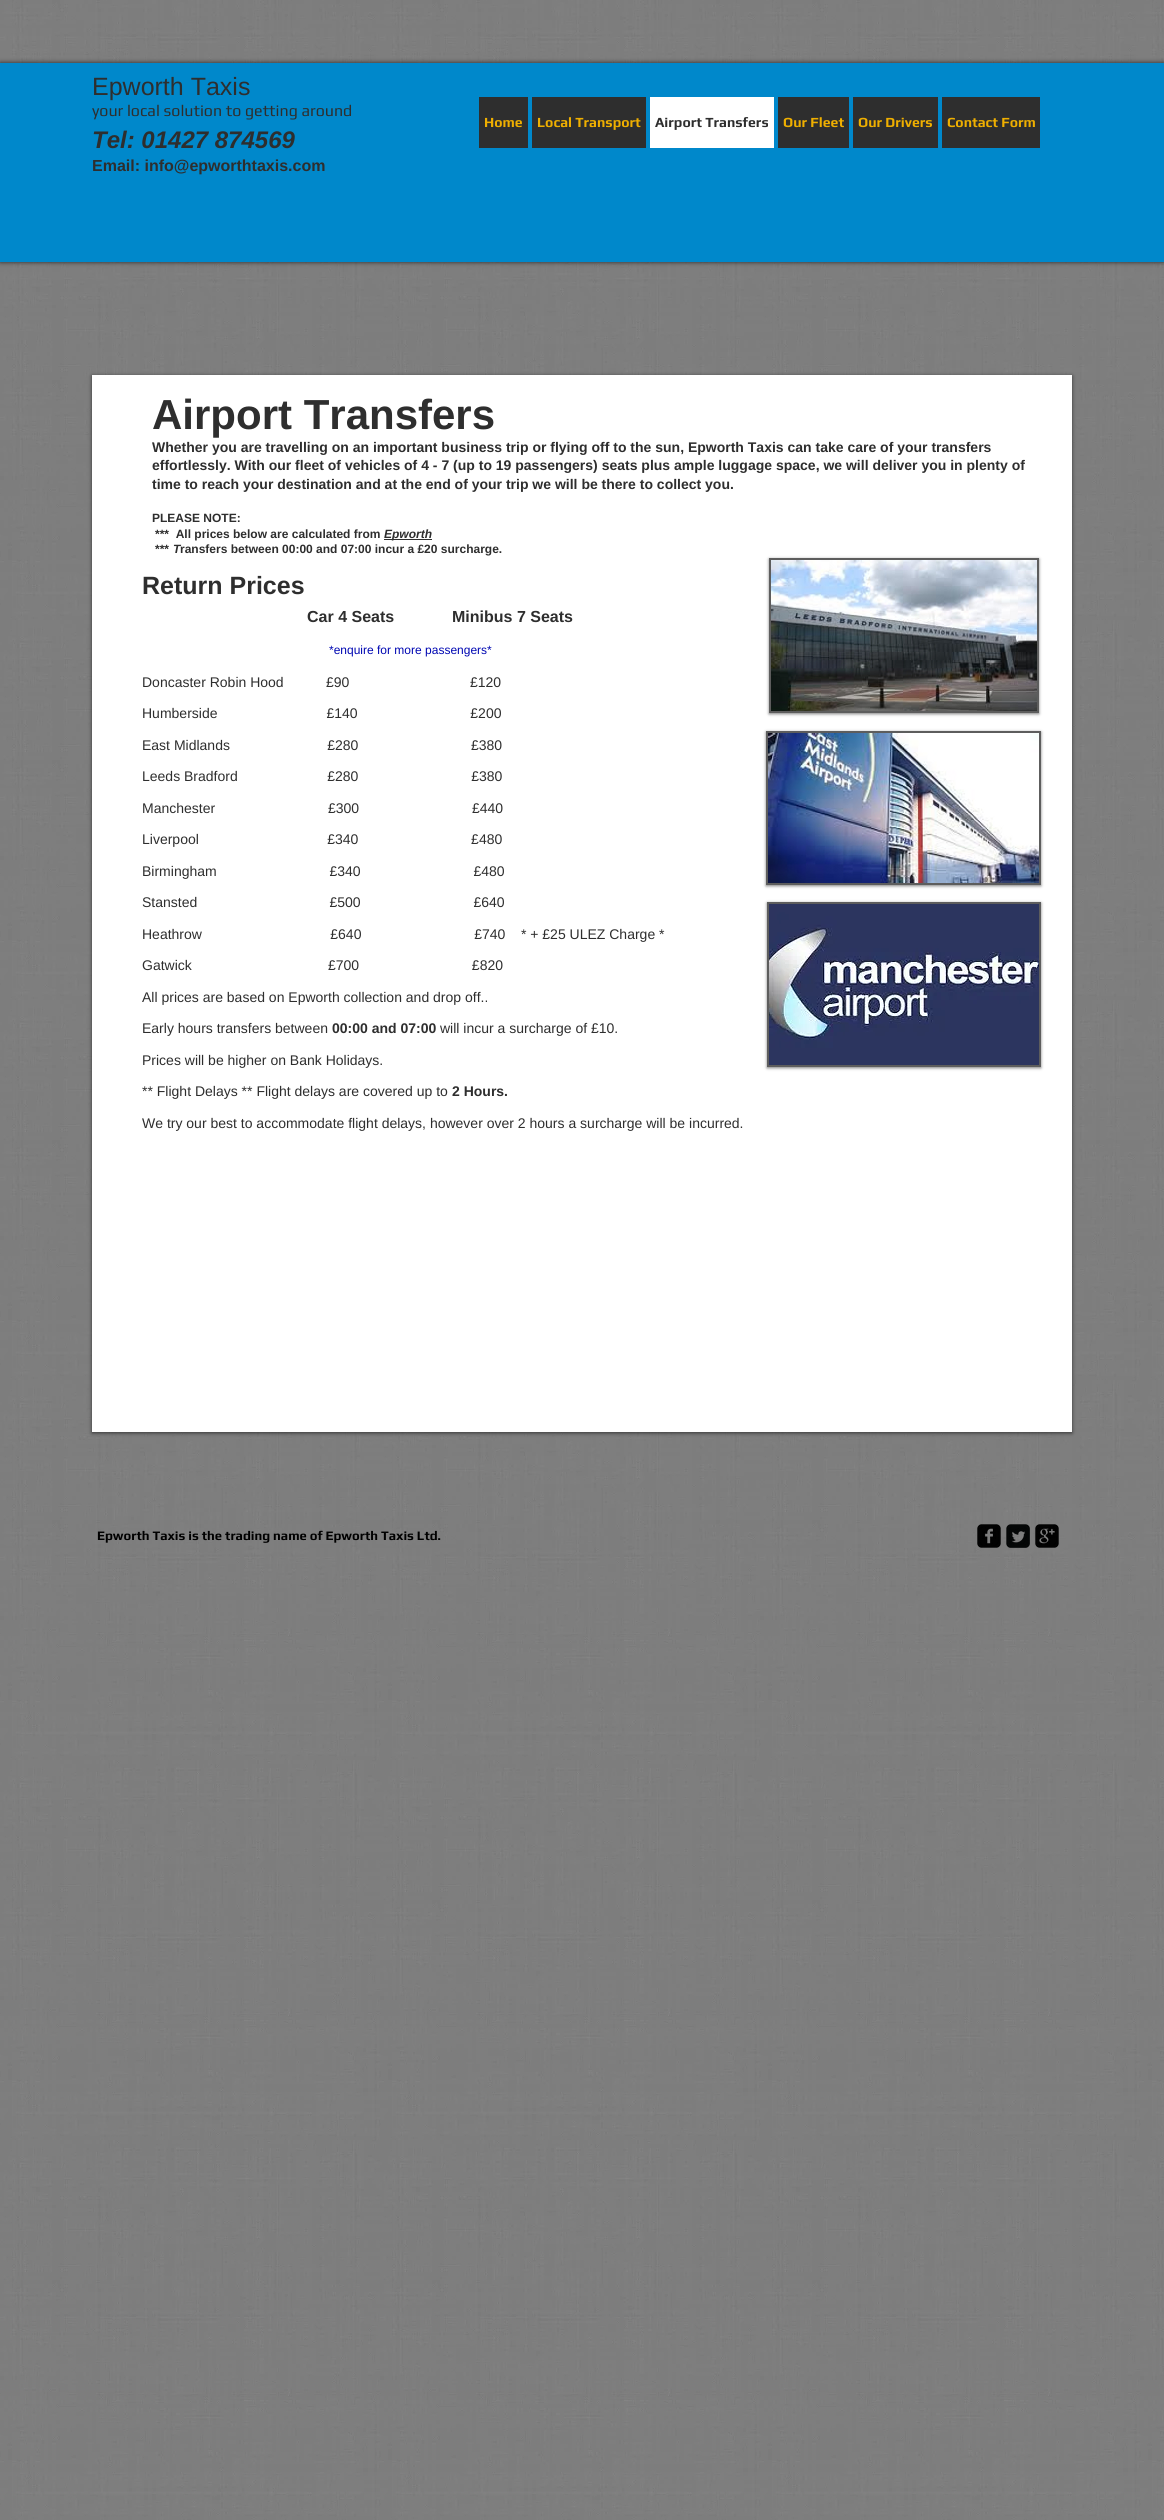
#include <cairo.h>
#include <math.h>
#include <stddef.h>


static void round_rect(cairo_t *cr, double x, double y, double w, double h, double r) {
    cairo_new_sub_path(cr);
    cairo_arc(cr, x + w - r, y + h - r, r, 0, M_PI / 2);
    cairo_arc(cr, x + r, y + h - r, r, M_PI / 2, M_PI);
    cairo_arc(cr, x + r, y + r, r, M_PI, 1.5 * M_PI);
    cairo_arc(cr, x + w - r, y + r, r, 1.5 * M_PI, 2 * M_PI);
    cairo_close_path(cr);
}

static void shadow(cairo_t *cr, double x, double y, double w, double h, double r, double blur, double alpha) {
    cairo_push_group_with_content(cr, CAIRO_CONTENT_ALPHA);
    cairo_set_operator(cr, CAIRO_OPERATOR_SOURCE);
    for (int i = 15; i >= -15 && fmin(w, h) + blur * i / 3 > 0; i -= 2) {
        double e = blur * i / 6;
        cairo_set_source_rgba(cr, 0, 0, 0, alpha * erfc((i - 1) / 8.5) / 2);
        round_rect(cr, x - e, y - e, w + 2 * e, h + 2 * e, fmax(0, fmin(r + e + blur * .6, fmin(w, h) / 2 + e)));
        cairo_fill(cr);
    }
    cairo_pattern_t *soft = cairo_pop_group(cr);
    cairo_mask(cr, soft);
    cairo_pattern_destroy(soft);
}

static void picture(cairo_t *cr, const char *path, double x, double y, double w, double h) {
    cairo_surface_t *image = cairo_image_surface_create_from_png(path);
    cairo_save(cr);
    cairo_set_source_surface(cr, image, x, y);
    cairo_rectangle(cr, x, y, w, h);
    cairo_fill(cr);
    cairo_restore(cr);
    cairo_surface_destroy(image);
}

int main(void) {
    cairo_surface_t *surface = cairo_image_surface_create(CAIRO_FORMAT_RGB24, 1164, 2520);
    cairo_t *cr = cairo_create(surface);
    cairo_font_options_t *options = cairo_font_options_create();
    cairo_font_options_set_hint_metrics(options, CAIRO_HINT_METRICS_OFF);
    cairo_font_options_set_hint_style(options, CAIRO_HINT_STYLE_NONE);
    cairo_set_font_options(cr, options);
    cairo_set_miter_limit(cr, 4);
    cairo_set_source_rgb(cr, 1, 1, 1);
    cairo_paint(cr);
    picture(cr, "img1.png", 0, 0, 1164, 2520);
    cairo_set_source_rgb(cr, 0, 0, 0);
    shadow(cr, 0, 63, 1164, 199, 0, 2.5, 0.7);
    cairo_set_source_rgb(cr, 0, 0.533, 0.796);
    cairo_rectangle(cr, 0, 63, 1164, 199);
    cairo_fill(cr);
    cairo_select_font_face(cr, "Liberation Sans", CAIRO_FONT_SLANT_NORMAL, CAIRO_FONT_WEIGHT_NORMAL);
    cairo_set_font_size(cr, 25);
    cairo_set_source_rgb(cr, 0.18, 0.18, 0.18);
    cairo_move_to(cr, 92, 95);
    cairo_show_text(cr, "Epworth Taxis");
    cairo_select_font_face(cr, "Play", CAIRO_FONT_SLANT_NORMAL, CAIRO_FONT_WEIGHT_NORMAL);
    cairo_set_font_size(cr, 16);
    cairo_move_to(cr, 92, 116);
    cairo_show_text(cr, "your local solution to getting around");
    cairo_select_font_face(cr, "Liberation Sans", CAIRO_FONT_SLANT_ITALIC, CAIRO_FONT_WEIGHT_BOLD);
    cairo_set_font_size(cr, 24);
    cairo_move_to(cr, 92, 148);
    cairo_show_text(cr, "Tel: 01427 874569");
    cairo_select_font_face(cr, "Liberation Sans", CAIRO_FONT_SLANT_NORMAL, CAIRO_FONT_WEIGHT_BOLD);
    cairo_set_font_size(cr, 16);
    cairo_move_to(cr, 92, 171);
    cairo_show_text(cr, "Email: info@epworthtaxis.com");
    cairo_rectangle(cr, 479, 97, 49, 51);
    cairo_fill(cr);
    cairo_select_font_face(cr, "Play", CAIRO_FONT_SLANT_NORMAL, CAIRO_FONT_WEIGHT_BOLD);
    cairo_set_font_size(cr, 14);
    cairo_set_source_rgb(cr, 0.937, 0.686, 0);
    cairo_move_to(cr, 484, 127);
    cairo_show_text(cr, "Home");
    cairo_set_source_rgb(cr, 0.18, 0.18, 0.18);
    cairo_rectangle(cr, 532, 97, 114, 51);
    cairo_fill(cr);
    cairo_set_source_rgb(cr, 0.937, 0.686, 0);
    cairo_move_to(cr, 537, 127);
    cairo_show_text(cr, "Local Transport");
    cairo_set_source_rgb(cr, 1, 1, 1);
    cairo_rectangle(cr, 650, 97, 124, 51);
    cairo_fill(cr);
    cairo_set_source_rgb(cr, 0.18, 0.18, 0.18);
    cairo_move_to(cr, 655, 127);
    cairo_show_text(cr, "Airport Transfers");
    cairo_rectangle(cr, 778, 97, 71, 51);
    cairo_fill(cr);
    cairo_set_source_rgb(cr, 0.937, 0.686, 0);
    cairo_move_to(cr, 783, 127);
    cairo_show_text(cr, "Our Fleet");
    cairo_set_source_rgb(cr, 0.18, 0.18, 0.18);
    cairo_rectangle(cr, 853, 97, 85, 51);
    cairo_fill(cr);
    cairo_set_source_rgb(cr, 0.937, 0.686, 0);
    cairo_move_to(cr, 858, 127);
    cairo_show_text(cr, "Our Drivers");
    cairo_set_source_rgb(cr, 0.18, 0.18, 0.18);
    cairo_rectangle(cr, 942, 97, 98, 51);
    cairo_fill(cr);
    cairo_set_source_rgb(cr, 0.937, 0.686, 0);
    cairo_move_to(cr, 947, 127);
    cairo_show_text(cr, "Contact Form");
    cairo_set_source_rgb(cr, 0, 0, 0);
    shadow(cr, 92, 376, 980, 1057, 0, 2, 0.6);
    cairo_set_source_rgb(cr, 1, 1, 1);
    cairo_rectangle(cr, 92, 375, 980, 1057);
    cairo_fill(cr);
    cairo_select_font_face(cr, "Liberation Sans", CAIRO_FONT_SLANT_NORMAL, CAIRO_FONT_WEIGHT_BOLD);
    cairo_set_font_size(cr, 42);
    cairo_set_source_rgb(cr, 0.18, 0.18, 0.18);
    cairo_move_to(cr, 152, 429);
    cairo_show_text(cr, "Airport Transfers");
    cairo_set_font_size(cr, 14);
    cairo_move_to(cr, 152, 452);
    cairo_show_text(cr, "Whether you are travelling on an important business trip or flying off to the sun, Epworth Taxis can take care of your transfers");
    cairo_move_to(cr, 152, 470);
    cairo_show_text(cr, "effortlessly. With our fleet of vehicles of 4 - 7 (up to 19 passengers) seats plus ample luggage space, we will deliver you in plenty of");
    cairo_move_to(cr, 152, 489);
    cairo_show_text(cr, "time to reach your destination and at the end of your trip we will be there to collect you.");
    cairo_set_font_size(cr, 12);
    cairo_move_to(cr, 152, 522);
    cairo_show_text(cr, "PLEASE NOTE:");
    cairo_move_to(cr, 155, 538);
    cairo_show_text(cr, "***  All prices below are calculated from");
    cairo_rectangle(cr, 384, 539, 48, 1);
    cairo_fill(cr);
    cairo_select_font_face(cr, "Liberation Sans", CAIRO_FONT_SLANT_ITALIC, CAIRO_FONT_WEIGHT_BOLD);
    cairo_move_to(cr, 384, 538);
    cairo_show_text(cr, "Epworth");
    cairo_select_font_face(cr, "Liberation Sans", CAIRO_FONT_SLANT_NORMAL, CAIRO_FONT_WEIGHT_BOLD);
    cairo_move_to(cr, 155, 553);
    cairo_show_text(cr, "***");
    cairo_select_font_face(cr, "Liberation Sans", CAIRO_FONT_SLANT_ITALIC, CAIRO_FONT_WEIGHT_BOLD);
    cairo_move_to(cr, 173, 553);
    cairo_show_text(cr, "T");
    cairo_select_font_face(cr, "Liberation Sans", CAIRO_FONT_SLANT_NORMAL, CAIRO_FONT_WEIGHT_BOLD);
    cairo_move_to(cr, 180, 553);
    cairo_show_text(cr, "ransfers between 00:00 and 07:00 incur a £20 surcharge.");
    cairo_set_font_size(cr, 25);
    cairo_move_to(cr, 142, 594);
    cairo_show_text(cr, "Return Prices");
    cairo_set_font_size(cr, 16);
    cairo_move_to(cr, 307, 622);
    cairo_show_text(cr, "Car 4 Seats");
    cairo_move_to(cr, 452, 622);
    cairo_show_text(cr, "Minibus 7 Seats");
    cairo_select_font_face(cr, "Liberation Sans", CAIRO_FONT_SLANT_NORMAL, CAIRO_FONT_WEIGHT_NORMAL);
    cairo_set_font_size(cr, 12);
    cairo_set_source_rgb(cr, 0, 0.031, 0.698);
    cairo_move_to(cr, 329, 654);
    cairo_show_text(cr, "*enquire for more passengers*");
    cairo_set_font_size(cr, 14);
    cairo_set_source_rgb(cr, 0.18, 0.18, 0.18);
    cairo_move_to(cr, 142, 687);
    cairo_show_text(cr, "Doncaster Robin Hood");
    cairo_move_to(cr, 326, 687);
    cairo_show_text(cr, "£90                               £120");
    cairo_move_to(cr, 142, 718);
    cairo_show_text(cr, "Humberside                            £140                             £200");
    cairo_move_to(cr, 142, 750);
    cairo_show_text(cr, "East Midlands                         £280");
    cairo_move_to(cr, 471, 750);
    cairo_show_text(cr, "£380");
    cairo_move_to(cr, 142, 781);
    cairo_show_text(cr, "Leeds Bradford                       £280                             £380");
    cairo_move_to(cr, 142, 813);
    cairo_show_text(cr, "Manchester                             £300                             £440");
    cairo_move_to(cr, 142, 844);
    cairo_show_text(cr, "Liverpool                                 £340                             £480");
    cairo_move_to(cr, 142, 876);
    cairo_show_text(cr, "Birmingham                             £340                             £480");
    cairo_move_to(cr, 142, 907);
    cairo_show_text(cr, "Stansted                                  £500                             £640");
    cairo_move_to(cr, 142, 939);
    cairo_show_text(cr, "Heathrow                                 £640                             £740    * + £25 ULEZ Charge *");
    cairo_move_to(cr, 142, 970);
    cairo_show_text(cr, "Gatwick                                   £700                             £820");
    cairo_move_to(cr, 142, 1002);
    cairo_show_text(cr, "All prices are based on Epworth collection and drop off..");
    cairo_move_to(cr, 142, 1033);
    cairo_show_text(cr, "Early hours transfers between");
    cairo_select_font_face(cr, "Liberation Sans", CAIRO_FONT_SLANT_NORMAL, CAIRO_FONT_WEIGHT_BOLD);
    cairo_move_to(cr, 332, 1033);
    cairo_show_text(cr, "00:00 and 07:00");
    cairo_select_font_face(cr, "Liberation Sans", CAIRO_FONT_SLANT_NORMAL, CAIRO_FONT_WEIGHT_NORMAL);
    cairo_move_to(cr, 440, 1033);
    cairo_show_text(cr, "will incur a surcharge of £10.");
    cairo_move_to(cr, 142, 1065);
    cairo_show_text(cr, "Prices will be higher on Bank Holidays.");
    cairo_move_to(cr, 142, 1096);
    cairo_show_text(cr, "** Flight Delays ** Flight delays are covered up to");
    cairo_select_font_face(cr, "Liberation Sans", CAIRO_FONT_SLANT_NORMAL, CAIRO_FONT_WEIGHT_BOLD);
    cairo_move_to(cr, 452, 1096);
    cairo_show_text(cr, "2 Hours.");
    cairo_select_font_face(cr, "Liberation Sans", CAIRO_FONT_SLANT_NORMAL, CAIRO_FONT_WEIGHT_NORMAL);
    cairo_move_to(cr, 142, 1128);
    cairo_show_text(cr, "We try our best to accommodate flight delays, however over 2 hours a surcharge will be incurred.");
    cairo_set_source_rgb(cr, 0, 0, 0);
    shadow(cr, 769, 559, 270, 155, 0, 1.5, 0.5);
    cairo_set_source_rgb(cr, 0.365, 0.365, 0.365);
    cairo_rectangle(cr, 769, 558, 270, 155);
    cairo_fill(cr);
    picture(cr, "img2.png", 771, 560, 266, 151);
    cairo_set_source_rgb(cr, 0, 0, 0);
    shadow(cr, 766, 732, 275, 154, 0, 1.5, 0.5);
    cairo_set_source_rgb(cr, 0.365, 0.365, 0.365);
    cairo_rectangle(cr, 766, 731, 275, 154);
    cairo_fill(cr);
    picture(cr, "img3.png", 768, 733, 271, 150);
    cairo_set_source_rgb(cr, 0, 0, 0);
    shadow(cr, 767, 903, 274, 165, 0, 1.5, 0.5);
    cairo_set_source_rgb(cr, 0.365, 0.365, 0.365);
    cairo_rectangle(cr, 767, 902, 274, 165);
    cairo_fill(cr);
    picture(cr, "img4.png", 769, 904, 270, 161);
    cairo_select_font_face(cr, "Play", CAIRO_FONT_SLANT_NORMAL, CAIRO_FONT_WEIGHT_BOLD);
    cairo_set_font_size(cr, 13);
    cairo_set_source_rgb(cr, 0, 0, 0);
    cairo_move_to(cr, 97, 1540);
    cairo_show_text(cr, "Epworth Taxis is the trading name of Epworth Taxis Ltd.");
    picture(cr, "img5.png", 977, 1524, 24, 24);
    picture(cr, "img6.png", 1006, 1524, 24, 24);
    picture(cr, "img7.png", 1035, 1524, 24, 24);
    cairo_surface_write_to_png(surface, "page.png");
    cairo_font_options_destroy(options);
    cairo_destroy(cr);
    cairo_surface_destroy(surface);
    return 0;
}
